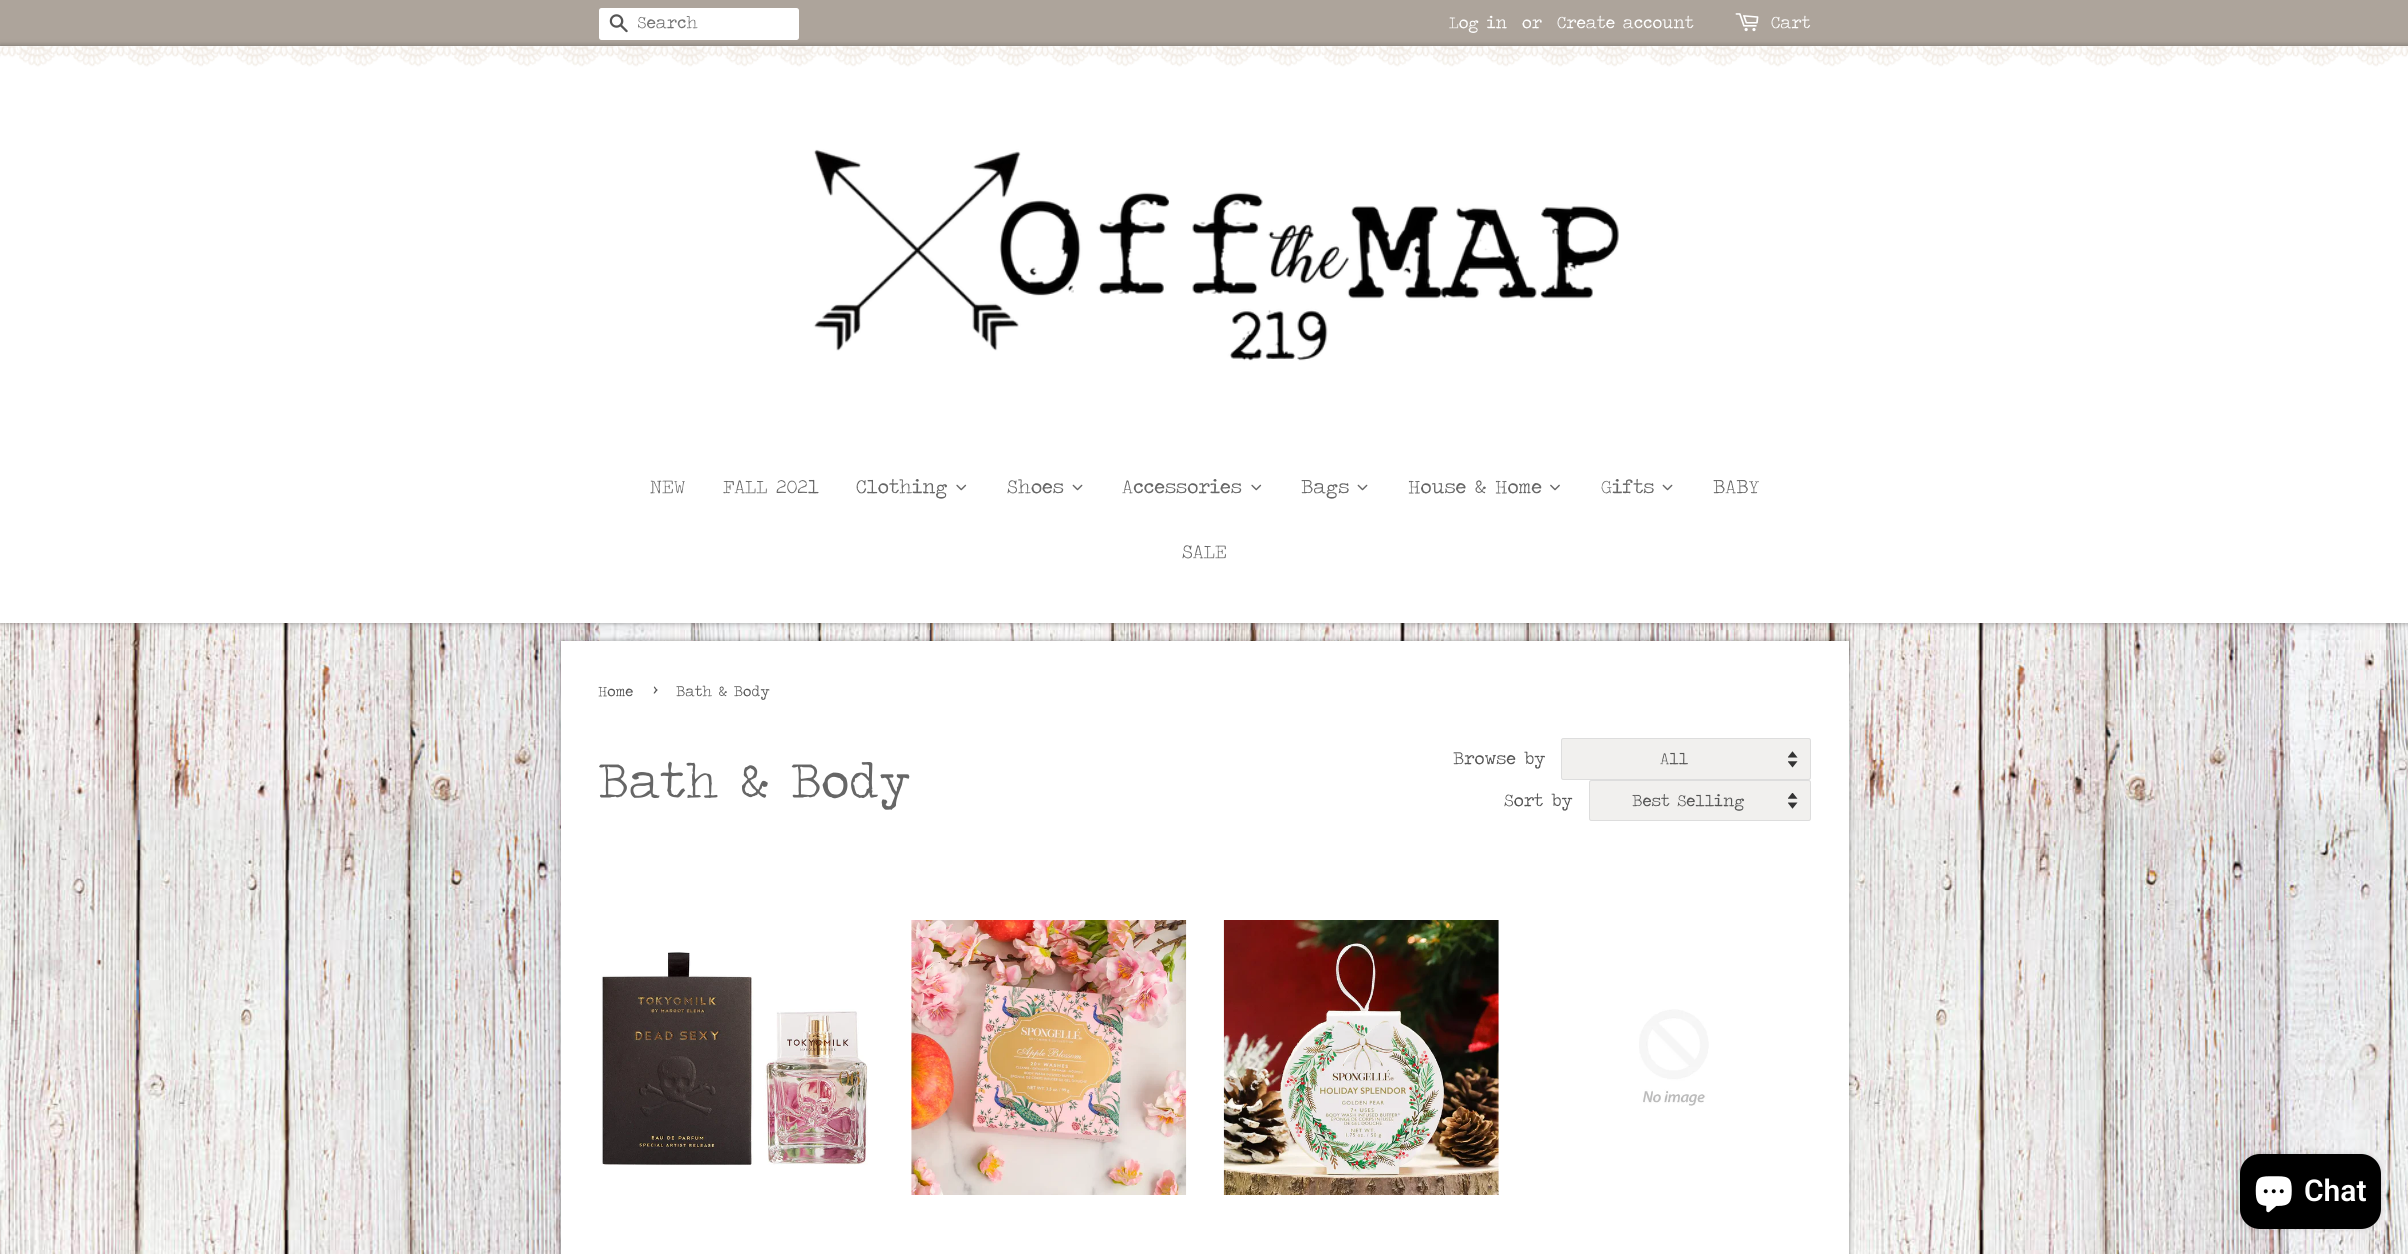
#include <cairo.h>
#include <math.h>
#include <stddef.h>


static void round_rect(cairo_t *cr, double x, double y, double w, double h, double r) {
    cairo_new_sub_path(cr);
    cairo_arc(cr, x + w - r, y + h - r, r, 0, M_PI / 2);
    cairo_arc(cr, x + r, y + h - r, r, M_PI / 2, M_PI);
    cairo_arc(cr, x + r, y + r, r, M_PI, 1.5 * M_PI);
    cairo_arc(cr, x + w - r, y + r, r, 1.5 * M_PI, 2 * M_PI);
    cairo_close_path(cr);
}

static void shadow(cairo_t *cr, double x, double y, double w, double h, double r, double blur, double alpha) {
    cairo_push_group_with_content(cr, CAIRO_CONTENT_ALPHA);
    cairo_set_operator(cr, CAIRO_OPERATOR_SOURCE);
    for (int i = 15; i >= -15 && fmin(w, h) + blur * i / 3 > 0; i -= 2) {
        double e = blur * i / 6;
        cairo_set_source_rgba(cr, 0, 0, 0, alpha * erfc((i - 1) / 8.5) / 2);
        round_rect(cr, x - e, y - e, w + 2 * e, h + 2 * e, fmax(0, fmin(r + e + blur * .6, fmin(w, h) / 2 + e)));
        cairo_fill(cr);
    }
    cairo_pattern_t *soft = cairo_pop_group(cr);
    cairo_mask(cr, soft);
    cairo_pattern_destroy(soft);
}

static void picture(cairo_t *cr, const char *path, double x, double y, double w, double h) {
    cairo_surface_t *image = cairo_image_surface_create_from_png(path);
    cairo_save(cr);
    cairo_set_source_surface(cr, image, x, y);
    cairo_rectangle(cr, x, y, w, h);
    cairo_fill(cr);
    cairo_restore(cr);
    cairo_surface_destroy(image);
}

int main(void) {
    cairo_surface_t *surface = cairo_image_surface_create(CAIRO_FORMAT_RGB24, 2408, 1254);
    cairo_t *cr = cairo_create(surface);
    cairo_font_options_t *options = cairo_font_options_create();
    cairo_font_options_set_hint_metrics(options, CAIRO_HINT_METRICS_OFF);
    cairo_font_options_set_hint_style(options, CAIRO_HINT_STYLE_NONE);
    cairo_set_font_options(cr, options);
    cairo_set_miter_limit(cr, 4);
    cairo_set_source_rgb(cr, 1, 1, 1);
    cairo_paint(cr);
    picture(cr, "img1.png", 0, 623, 2408, 631);
    cairo_set_source_rgb(cr, 0.678, 0.643, 0.608);
    cairo_rectangle(cr, 0, 0, 2408, 46);
    cairo_fill(cr);
    cairo_set_source_rgb(cr, 0.196, 0.196, 0.196);
    shadow(cr, 0, 46, 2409, 577, 0, 3, 0.5);
    cairo_set_source_rgb(cr, 1, 1, 1);
    round_rect(cr, 599, 8, 200, 32, 2.5);
    cairo_fill(cr);
    picture(cr, "img2.png", 609, 14, 19, 19);
    cairo_save(cr);
    cairo_rectangle(cr, 638, 11, 155, 23);
    cairo_clip(cr);
    cairo_select_font_face(cr, "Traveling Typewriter", CAIRO_FONT_SLANT_NORMAL, CAIRO_FONT_WEIGHT_NORMAL);
    cairo_set_font_size(cr, 17.5);
    cairo_set_source_rgb(cr, 0.459, 0.459, 0.459);
    cairo_move_to(cr, 637, 28);
    cairo_show_text(cr, "Search");
    cairo_restore(cr);
    cairo_select_font_face(cr, "Traveling Typewriter", CAIRO_FONT_SLANT_NORMAL, CAIRO_FONT_WEIGHT_NORMAL);
    cairo_set_font_size(cr, 17.5);
    cairo_move_to(cr, 1449, 28);
    cairo_show_text(cr, "Log in");
    cairo_move_to(cr, 1522, 28);
    cairo_show_text(cr, "or");
    cairo_move_to(cr, 1557, 28);
    cairo_show_text(cr, "Create account");
    picture(cr, "img3.png", 1735, 13, 24, 19);
    cairo_move_to(cr, 1771, 28);
    cairo_show_text(cr, "Cart");
    cairo_rectangle(cr, 0, 46, 2408, 577);
    cairo_fill(cr);
    picture(cr, "img4.png", 0, 46, 2408, 21);
    picture(cr, "img5.png", 813, 149, 806, 212);
    cairo_set_font_size(cr, 20);
    cairo_set_source_rgb(cr, 0.4, 0.4, 0.4);
    cairo_move_to(cr, 650, 493);
    cairo_show_text(cr, "NEW");
    cairo_move_to(cr, 723, 493);
    cairo_show_text(cr, "FALL 2021");
    cairo_move_to(cr, 856, 493);
    cairo_show_text(cr, "Clothing");
    picture(cr, "img6.png", 956, 484, 11, 7);
    cairo_move_to(cr, 1007, 493);
    cairo_show_text(cr, "Shoes");
    picture(cr, "img7.png", 1072, 484, 11, 7);
    cairo_move_to(cr, 1122, 493);
    cairo_show_text(cr, "Accessories");
    picture(cr, "img6.png", 1251, 484, 11, 7);
    cairo_move_to(cr, 1301, 493);
    cairo_show_text(cr, "Bags");
    picture(cr, "img7.png", 1357, 484, 11, 7);
    cairo_move_to(cr, 1408, 493);
    cairo_show_text(cr, "House & Home");
    picture(cr, "img8.png", 1550, 484, 10, 7);
    cairo_move_to(cr, 1601, 493);
    cairo_show_text(cr, "Gifts");
    picture(cr, "img7.png", 1662, 484, 11, 7);
    cairo_move_to(cr, 1713, 493);
    cairo_show_text(cr, "BABY");
    cairo_move_to(cr, 1182, 558);
    cairo_show_text(cr, "SALE");
    cairo_set_source_rgb(cr, 0.196, 0.196, 0.196);
    shadow(cr, 561, 641, 1288, 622, 0, 3, 0.5);
    cairo_set_source_rgb(cr, 1, 1, 1);
    cairo_rectangle(cr, 561, 641, 1288, 613);
    cairo_fill(cr);
    cairo_set_font_size(cr, 15);
    cairo_set_source_rgb(cr, 0.333, 0.333, 0.333);
    cairo_move_to(cr, 598, 696);
    cairo_show_text(cr, "Home");
    cairo_set_font_size(cr, 21);
    cairo_move_to(cr, 653, 696);
    cairo_show_text(cr, "›");
    cairo_set_font_size(cr, 15);
    cairo_move_to(cr, 676, 696);
    cairo_show_text(cr, "Bath & Body");
    cairo_set_font_size(cr, 50);
    cairo_set_source_rgb(cr, 0.4, 0.4, 0.4);
    cairo_move_to(cr, 598, 797);
    cairo_show_text(cr, "Bath & Body");
    cairo_set_font_size(cr, 18);
    cairo_set_source_rgb(cr, 0.333, 0.333, 0.333);
    cairo_move_to(cr, 1453, 764);
    cairo_show_text(cr, "Browse by");
    cairo_set_source_rgb(cr, 0.945, 0.941, 0.933);
    round_rect(cr, 1561, 738, 250, 42, 2.5);
    cairo_fill(cr);
    picture(cr, "img9.png", 1788, 751, 10, 17);
    round_rect(cr, 1561.5, 738.5, 249, 41, 2);
    cairo_set_source_rgb(cr, 0.867, 0.867, 0.867);
    cairo_set_line_width(cr, 1);
    cairo_stroke(cr);
    cairo_set_font_size(cr, 17);
    cairo_set_source_rgb(cr, 0.333, 0.333, 0.333);
    cairo_move_to(cr, 1660, 764);
    cairo_show_text(cr, "All");
    cairo_set_font_size(cr, 18);
    cairo_move_to(cr, 1504, 806);
    cairo_show_text(cr, "Sort by");
    cairo_set_source_rgb(cr, 0.945, 0.941, 0.933);
    round_rect(cr, 1589, 780, 222, 41, 2.5);
    cairo_fill(cr);
    picture(cr, "img10.png", 1788, 793, 10, 16);
    round_rect(cr, 1589.5, 780.5, 221, 40, 2);
    cairo_set_source_rgb(cr, 0.867, 0.867, 0.867);
    cairo_stroke(cr);
    cairo_set_font_size(cr, 17);
    cairo_set_source_rgb(cr, 0.333, 0.333, 0.333);
    cairo_move_to(cr, 1632, 806);
    cairo_show_text(cr, "Best Selling");
    picture(cr, "img11.png", 601, 952, 267, 213);
    picture(cr, "img12.png", 911, 920, 276, 275);
    picture(cr, "img13.png", 1223, 920, 276, 275);
    picture(cr, "img14.png", 1639, 1009, 70, 97);
    cairo_set_source_rgb(cr, 0, 0, 0);
    shadow(cr, 2240, 1154, 141, 75, 20, 3, 0.15);
    cairo_set_source_rgb(cr, 0, 0, 0);
    round_rect(cr, 2240, 1154, 141, 75, 20);
    cairo_fill(cr);
    picture(cr, "img15.png", 2255, 1176, 37, 37);
    cairo_select_font_face(cr, "Roboto SemiBold", CAIRO_FONT_SLANT_NORMAL, CAIRO_FONT_WEIGHT_NORMAL);
    cairo_set_font_size(cr, 30);
    cairo_set_source_rgb(cr, 1, 1, 1);
    cairo_move_to(cr, 2304, 1201);
    cairo_show_text(cr, "Chat");
    cairo_surface_write_to_png(surface, "page.png");
    cairo_font_options_destroy(options);
    cairo_destroy(cr);
    cairo_surface_destroy(surface);
    return 0;
}
